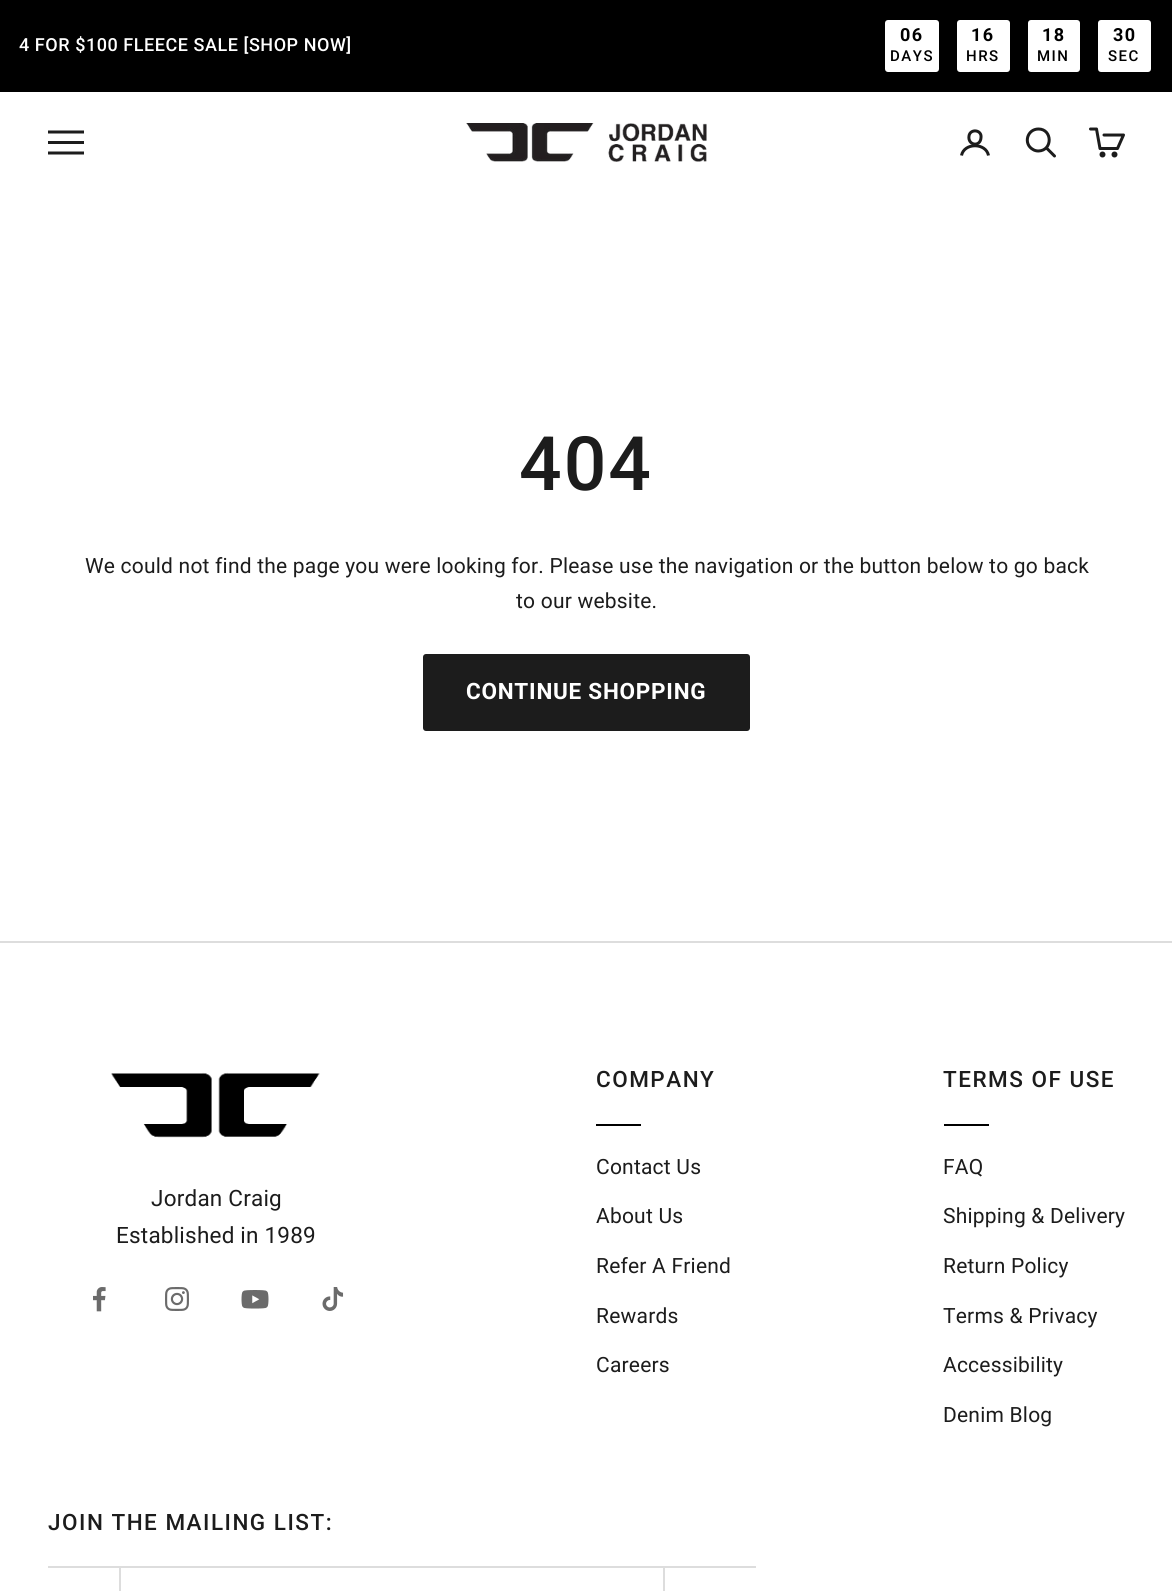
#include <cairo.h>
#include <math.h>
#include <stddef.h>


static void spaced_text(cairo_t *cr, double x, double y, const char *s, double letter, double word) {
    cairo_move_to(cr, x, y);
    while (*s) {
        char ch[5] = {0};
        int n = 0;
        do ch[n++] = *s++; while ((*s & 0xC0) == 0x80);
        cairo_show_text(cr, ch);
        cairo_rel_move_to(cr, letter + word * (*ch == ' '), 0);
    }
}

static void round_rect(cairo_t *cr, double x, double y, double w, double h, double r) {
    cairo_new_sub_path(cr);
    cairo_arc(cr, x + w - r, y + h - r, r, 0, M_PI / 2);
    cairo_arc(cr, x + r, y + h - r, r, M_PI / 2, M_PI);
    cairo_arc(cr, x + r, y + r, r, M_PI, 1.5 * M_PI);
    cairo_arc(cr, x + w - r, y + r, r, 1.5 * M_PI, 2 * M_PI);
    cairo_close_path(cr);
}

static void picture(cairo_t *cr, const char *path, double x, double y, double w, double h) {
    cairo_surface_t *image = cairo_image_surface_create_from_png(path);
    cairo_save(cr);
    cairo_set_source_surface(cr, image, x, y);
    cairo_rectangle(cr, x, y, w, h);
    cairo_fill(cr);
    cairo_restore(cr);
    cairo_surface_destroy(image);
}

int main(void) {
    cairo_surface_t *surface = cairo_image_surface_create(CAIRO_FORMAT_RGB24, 1172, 1591);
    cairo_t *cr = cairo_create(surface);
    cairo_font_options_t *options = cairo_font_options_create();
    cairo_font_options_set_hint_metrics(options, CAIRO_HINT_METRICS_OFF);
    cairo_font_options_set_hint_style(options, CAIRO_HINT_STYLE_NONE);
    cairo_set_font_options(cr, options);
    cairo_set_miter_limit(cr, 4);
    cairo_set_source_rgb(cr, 1, 1, 1);
    cairo_paint(cr);
    cairo_set_source_rgb(cr, 0, 0, 0);
    cairo_rectangle(cr, 0, 0, 1172, 92);
    cairo_fill(cr);
    cairo_select_font_face(cr, "Roboto Medium", CAIRO_FONT_SLANT_NORMAL, CAIRO_FONT_WEIGHT_NORMAL);
    cairo_set_font_size(cr, 18);
    cairo_set_source_rgb(cr, 1, 1, 1);
    spaced_text(cr, 19, 51, "4 FOR $100 FLEECE SALE [SHOP NOW]", 0.55, 0);
    round_rect(cr, 885, 20, 54, 52, 3);
    cairo_fill(cr);
    cairo_select_font_face(cr, "Roboto", CAIRO_FONT_SLANT_NORMAL, CAIRO_FONT_WEIGHT_BOLD);
    cairo_set_source_rgb(cr, 0, 0, 0);
    spaced_text(cr, 900, 41, "06", 1.5, 0);
    cairo_select_font_face(cr, "Roboto Medium", CAIRO_FONT_SLANT_NORMAL, CAIRO_FONT_WEIGHT_NORMAL);
    cairo_set_font_size(cr, 15);
    spaced_text(cr, 890, 61, "DAYS", 1.5, 0);
    cairo_set_source_rgb(cr, 1, 1, 1);
    round_rect(cr, 957, 20, 53, 52, 3);
    cairo_fill(cr);
    cairo_select_font_face(cr, "Roboto", CAIRO_FONT_SLANT_NORMAL, CAIRO_FONT_WEIGHT_BOLD);
    cairo_set_font_size(cr, 18);
    cairo_set_source_rgb(cr, 0, 0, 0);
    spaced_text(cr, 971, 41, "16", 1.5, 0);
    cairo_select_font_face(cr, "Roboto Medium", CAIRO_FONT_SLANT_NORMAL, CAIRO_FONT_WEIGHT_NORMAL);
    cairo_set_font_size(cr, 15);
    spaced_text(cr, 966, 61, "HRS", 1.5, 0);
    cairo_set_source_rgb(cr, 1, 1, 1);
    round_rect(cr, 1028, 20, 52, 52, 3);
    cairo_fill(cr);
    cairo_select_font_face(cr, "Roboto", CAIRO_FONT_SLANT_NORMAL, CAIRO_FONT_WEIGHT_BOLD);
    cairo_set_font_size(cr, 18);
    cairo_set_source_rgb(cr, 0, 0, 0);
    spaced_text(cr, 1042, 41, "18", 1.5, 0);
    cairo_select_font_face(cr, "Roboto Medium", CAIRO_FONT_SLANT_NORMAL, CAIRO_FONT_WEIGHT_NORMAL);
    cairo_set_font_size(cr, 15);
    spaced_text(cr, 1037, 61, "MIN", 1.5, 0);
    cairo_set_source_rgb(cr, 1, 1, 1);
    round_rect(cr, 1098, 20, 53, 52, 3);
    cairo_fill(cr);
    cairo_select_font_face(cr, "Roboto", CAIRO_FONT_SLANT_NORMAL, CAIRO_FONT_WEIGHT_BOLD);
    cairo_set_font_size(cr, 18);
    cairo_set_source_rgb(cr, 0, 0, 0);
    spaced_text(cr, 1113, 41, "30", 1.5, 0);
    cairo_select_font_face(cr, "Roboto Medium", CAIRO_FONT_SLANT_NORMAL, CAIRO_FONT_WEIGHT_NORMAL);
    cairo_set_font_size(cr, 15);
    spaced_text(cr, 1108, 61, "SEC", 1.5, 0);
    cairo_new_path(cr);
    cairo_move_to(cr, 49.5, 153);
    cairo_line_to(cr, 82.5, 153);
    cairo_move_to(cr, 49.5, 142.5);
    cairo_line_to(cr, 82.5, 142.5);
    cairo_move_to(cr, 49.5, 132);
    cairo_line_to(cr, 82.5, 132);
    cairo_set_source_rgb(cr, 0.11, 0.11, 0.11);
    cairo_set_line_width(cr, 3);
    cairo_set_line_cap(cr, CAIRO_LINE_CAP_SQUARE);
    cairo_stroke(cr);
    picture(cr, "img1.png", 466, 123, 241, 39);
    cairo_new_path(cr);
    cairo_move_to(cr, 981, 137.5);
    cairo_curve_to(cr, 980.5, 147.5, 967.5, 145.5, 969, 136);
    cairo_curve_to(cr, 970, 128.5, 982, 129.5, 981, 137.5);
    cairo_close_path(cr);
    cairo_set_line_cap(cr, CAIRO_LINE_CAP_ROUND);
    cairo_set_line_join(cr, CAIRO_LINE_JOIN_ROUND);
    cairo_stroke(cr);
    cairo_new_path(cr);
    cairo_move_to(cr, 961.5, 155.5);
    cairo_curve_to(cr, 964, 142.5, 986, 142.5, 988.5, 155.5);
    cairo_set_line_cap(cr, CAIRO_LINE_CAP_BUTT);
    cairo_set_line_join(cr, CAIRO_LINE_JOIN_MITER);
    cairo_stroke(cr);
    cairo_new_path(cr);
    cairo_move_to(cr, 1038.5, 129);
    cairo_curve_to(cr, 1027, 129, 1023, 144, 1033, 149.5);
    cairo_curve_to(cr, 1034.5, 150.5, 1036.5, 151, 1038.5, 151);
    cairo_curve_to(cr, 1053, 150.5, 1052.5, 129, 1038.5, 129);
    cairo_close_path(cr);
    cairo_stroke(cr);
    cairo_new_path(cr);
    cairo_move_to(cr, 1047, 148.5);
    cairo_line_to(cr, 1054.5, 156);
    cairo_set_line_cap(cr, CAIRO_LINE_CAP_ROUND);
    cairo_stroke(cr);
    cairo_new_path(cr);
    cairo_move_to(cr, 1104, 135);
    cairo_line_to(cr, 1123.5, 135);
    cairo_line_to(cr, 1117.5, 148.5);
    cairo_line_to(cr, 1100, 148.5);
    cairo_line_to(cr, 1096.5, 129);
    cairo_line_to(cr, 1090.5, 129);
    cairo_set_line_join(cr, CAIRO_LINE_JOIN_ROUND);
    cairo_stroke(cr);
    cairo_arc(cr, 1102.5, 154.5, 1.5, 0, 2 * M_PI);
    cairo_set_line_cap(cr, CAIRO_LINE_CAP_BUTT);
    cairo_set_line_join(cr, CAIRO_LINE_JOIN_MITER);
    cairo_stroke(cr);
    cairo_arc(cr, 1114.5, 154.5, 1.5, 0, 2 * M_PI);
    cairo_stroke(cr);
    cairo_set_font_size(cr, 75);
    spaced_text(cr, 519, 490, "404", 2, 0);
    cairo_select_font_face(cr, "Roboto", CAIRO_FONT_SLANT_NORMAL, CAIRO_FONT_WEIGHT_NORMAL);
    cairo_set_font_size(cr, 21);
    spaced_text(cr, 85, 573, "We could not find the page you were looking for. Please use the navigation or the button below to go back", 0.21, 0);
    spaced_text(cr, 516, 608, "to our website.", 0.21, 0);
    cairo_rectangle(cr, 425, 656, 323, 73);
    cairo_fill(cr);
    round_rect(cr, 424, 655, 325, 75, 2);
    cairo_set_line_width(cr, 2);
    cairo_stroke(cr);
    cairo_select_font_face(cr, "Roboto", CAIRO_FONT_SLANT_NORMAL, CAIRO_FONT_WEIGHT_BOLD);
    cairo_set_font_size(cr, 22.5);
    cairo_set_source_rgb(cr, 1, 1, 1);
    spaced_text(cr, 466, 699, "CONTINUE SHOPPING", 0.75, 0);
    cairo_set_source_rgb(cr, 0.867, 0.867, 0.867);
    cairo_rectangle(cr, 0, 941, 1172, 2);
    cairo_fill(cr);
    picture(cr, "img2.png", 111, 1072, 209, 66);
    cairo_select_font_face(cr, "Roboto", CAIRO_FONT_SLANT_NORMAL, CAIRO_FONT_WEIGHT_NORMAL);
    cairo_set_source_rgb(cr, 0.11, 0.11, 0.11);
    spaced_text(cr, 151, 1206, "Jordan Craig", 0.21, 0);
    spaced_text(cr, 116, 1243, "Established in 1989", 0.21, 0);
    picture(cr, "img3.png", 93, 1287, 13, 25);
    picture(cr, "img4.png", 165, 1287, 24, 24);
    picture(cr, "img5.png", 241, 1290, 28, 19);
    picture(cr, "img6.png", 322, 1287, 22, 24);
    cairo_select_font_face(cr, "Roboto Medium", CAIRO_FONT_SLANT_NORMAL, CAIRO_FONT_WEIGHT_NORMAL);
    spaced_text(cr, 596, 1087, "COMPANY", 1.5, 0);
    cairo_set_source_rgb(cr, 0, 0, 0);
    cairo_rectangle(cr, 596, 1124, 45, 2);
    cairo_fill(cr);
    cairo_select_font_face(cr, "Roboto", CAIRO_FONT_SLANT_NORMAL, CAIRO_FONT_WEIGHT_NORMAL);
    cairo_set_font_size(cr, 21);
    cairo_set_source_rgb(cr, 0.11, 0.11, 0.11);
    spaced_text(cr, 596, 1174, "Contact Us", 0.21, 0);
    spaced_text(cr, 596, 1223, "About Us", 0.21, 0);
    spaced_text(cr, 596, 1273, "Refer A Friend", 0.21, 0);
    spaced_text(cr, 596, 1323, "Rewards", 0.21, 0);
    spaced_text(cr, 596, 1372, "Careers", 0.21, 0);
    cairo_select_font_face(cr, "Roboto Medium", CAIRO_FONT_SLANT_NORMAL, CAIRO_FONT_WEIGHT_NORMAL);
    cairo_set_font_size(cr, 22.5);
    spaced_text(cr, 943, 1087, "TERMS OF USE", 1.5, 0);
    cairo_set_source_rgb(cr, 0, 0, 0);
    cairo_rectangle(cr, 944, 1124, 45, 2);
    cairo_fill(cr);
    cairo_select_font_face(cr, "Roboto", CAIRO_FONT_SLANT_NORMAL, CAIRO_FONT_WEIGHT_NORMAL);
    cairo_set_font_size(cr, 21);
    cairo_set_source_rgb(cr, 0.11, 0.11, 0.11);
    spaced_text(cr, 943, 1174, "FAQ", 0.21, 0);
    spaced_text(cr, 943, 1223, "Shipping & Delivery", 0.21, 0);
    spaced_text(cr, 943, 1273, "Return Policy", 0.21, 0);
    spaced_text(cr, 943, 1323, "Terms & Privacy", 0.21, 0);
    spaced_text(cr, 943, 1372, "Accessibility", 0.21, 0);
    spaced_text(cr, 943, 1422, "Denim Blog", 0.21, 0);
    cairo_select_font_face(cr, "Roboto Medium", CAIRO_FONT_SLANT_NORMAL, CAIRO_FONT_WEIGHT_NORMAL);
    cairo_set_font_size(cr, 22.5);
    spaced_text(cr, 48, 1530, "JOIN THE MAILING LIST:", 1.5, 0);
    cairo_set_source_rgb(cr, 0.867, 0.867, 0.867);
    cairo_rectangle(cr, 663, 1566, 93, 2);
    cairo_fill(cr);
    cairo_rectangle(cr, 663, 1566, 2, 25);
    cairo_fill(cr);
    cairo_rectangle(cr, 119, 1566, 546, 2);
    cairo_fill(cr);
    cairo_rectangle(cr, 119, 1566, 2, 25);
    cairo_fill(cr);
    cairo_rectangle(cr, 48, 1566, 72, 2);
    cairo_fill(cr);
    cairo_surface_write_to_png(surface, "page.png");
    cairo_font_options_destroy(options);
    cairo_destroy(cr);
    cairo_surface_destroy(surface);
    return 0;
}
